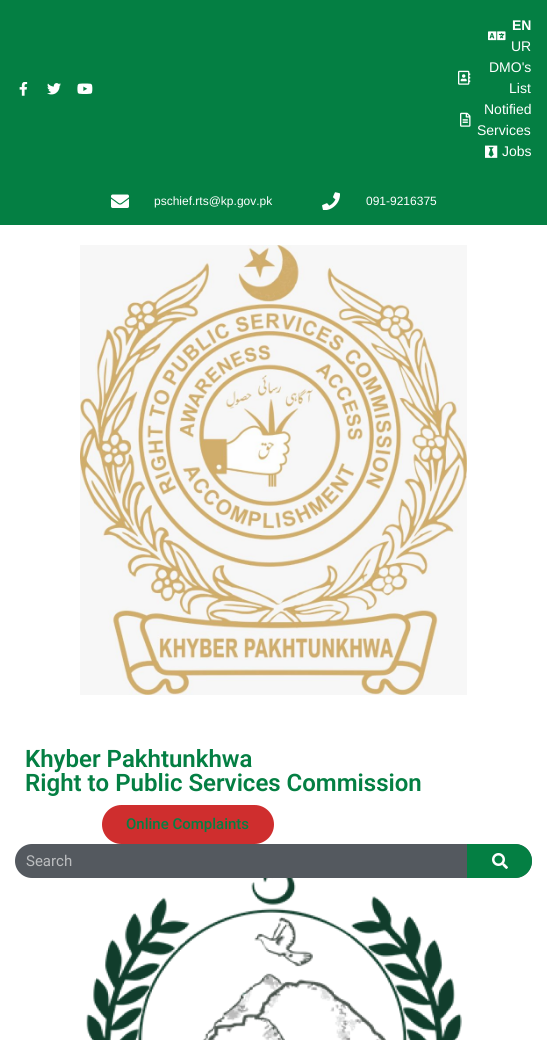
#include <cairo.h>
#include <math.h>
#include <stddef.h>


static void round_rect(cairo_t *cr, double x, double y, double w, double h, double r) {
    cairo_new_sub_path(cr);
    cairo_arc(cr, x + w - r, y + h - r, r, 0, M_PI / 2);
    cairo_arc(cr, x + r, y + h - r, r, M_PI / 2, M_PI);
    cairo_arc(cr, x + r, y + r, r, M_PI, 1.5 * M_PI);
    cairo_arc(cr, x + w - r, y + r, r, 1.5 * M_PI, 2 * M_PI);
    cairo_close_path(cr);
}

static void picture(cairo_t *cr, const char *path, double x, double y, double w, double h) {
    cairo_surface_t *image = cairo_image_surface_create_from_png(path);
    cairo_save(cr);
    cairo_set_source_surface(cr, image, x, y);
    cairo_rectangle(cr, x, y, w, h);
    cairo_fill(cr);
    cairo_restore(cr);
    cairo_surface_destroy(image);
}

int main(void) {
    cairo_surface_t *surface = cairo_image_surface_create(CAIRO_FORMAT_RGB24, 547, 1040);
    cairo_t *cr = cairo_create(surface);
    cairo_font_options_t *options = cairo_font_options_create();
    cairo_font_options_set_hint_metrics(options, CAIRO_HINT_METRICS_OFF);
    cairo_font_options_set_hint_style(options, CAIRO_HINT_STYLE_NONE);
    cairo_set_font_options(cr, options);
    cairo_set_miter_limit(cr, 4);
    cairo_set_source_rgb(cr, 1, 1, 1);
    cairo_paint(cr);
    cairo_set_source_rgb(cr, 0.016, 0.498, 0.263);
    cairo_rectangle(cr, 0, 0, 547, 225);
    cairo_fill(cr);
    picture(cr, "img1.png", 19, 82, 9, 14);
    picture(cr, "img2.png", 47, 83, 14, 12);
    picture(cr, "img3.png", 77, 83, 16, 11);
    picture(cr, "img4.png", 488, 31, 18, 10);
    cairo_select_font_face(cr, "Liberation Sans", CAIRO_FONT_SLANT_NORMAL, CAIRO_FONT_WEIGHT_BOLD);
    cairo_set_font_size(cr, 14);
    cairo_set_source_rgb(cr, 1, 1, 1);
    cairo_move_to(cr, 512, 30);
    cairo_show_text(cr, "EN");
    cairo_select_font_face(cr, "Liberation Sans", CAIRO_FONT_SLANT_NORMAL, CAIRO_FONT_WEIGHT_NORMAL);
    cairo_move_to(cr, 511, 51);
    cairo_show_text(cr, "UR");
    picture(cr, "img5.png", 458, 70, 13, 15);
    cairo_move_to(cr, 489, 72);
    cairo_show_text(cr, "DMO's");
    cairo_move_to(cr, 509, 93);
    cairo_show_text(cr, "List");
    picture(cr, "img6.png", 460, 112, 11, 15);
    cairo_move_to(cr, 484, 114);
    cairo_show_text(cr, "Notified");
    cairo_move_to(cr, 477, 135);
    cairo_show_text(cr, "Services");
    picture(cr, "img7.png", 485, 145, 13, 13);
    cairo_move_to(cr, 502, 156);
    cairo_show_text(cr, "Jobs");
    picture(cr, "img8.png", 111, 194, 18, 14);
    cairo_set_font_size(cr, 12);
    cairo_move_to(cr, 154, 205);
    cairo_show_text(cr, "pschief.rts@kp.gov.pk");
    picture(cr, "img9.png", 322, 192, 18, 18);
    cairo_move_to(cr, 366, 205);
    cairo_show_text(cr, "091-9216375");
    picture(cr, "img10.png", 80, 245, 387, 450);
    cairo_select_font_face(cr, "Roboto SemiBold", CAIRO_FONT_SLANT_NORMAL, CAIRO_FONT_WEIGHT_NORMAL);
    cairo_set_font_size(cr, 24);
    cairo_set_source_rgb(cr, 0.016, 0.498, 0.263);
    cairo_move_to(cr, 25, 767);
    cairo_show_text(cr, "Khyber Pakhtunkhwa");
    cairo_move_to(cr, 25, 791);
    cairo_show_text(cr, "Right to Public Services Commission");
    cairo_set_source_rgb(cr, 0.812, 0.18, 0.18);
    round_rect(cr, 102, 805, 172, 39, 19.5);
    cairo_fill(cr);
    cairo_select_font_face(cr, "Roboto Medium", CAIRO_FONT_SLANT_NORMAL, CAIRO_FONT_WEIGHT_NORMAL);
    cairo_set_font_size(cr, 15);
    cairo_set_source_rgb(cr, 0.016, 0.498, 0.263);
    cairo_move_to(cr, 126, 829);
    cairo_show_text(cr, "Online Complaints");
    cairo_set_source_rgb(cr, 0.329, 0.349, 0.373);
    round_rect(cr, 15, 844, 517, 34, 17);
    cairo_fill(cr);
    cairo_select_font_face(cr, "Roboto", CAIRO_FONT_SLANT_NORMAL, CAIRO_FONT_WEIGHT_NORMAL);
    cairo_set_source_rgb(cr, 0.733, 0.741, 0.749);
    cairo_move_to(cr, 26, 866);
    cairo_show_text(cr, "Search");
    cairo_set_source_rgb(cr, 0.016, 0.498, 0.263);
    cairo_new_path(cr);
    cairo_move_to(cr, 467, 844);
    cairo_line_to(cr, 515, 844);
    cairo_curve_to(cr, 524.5, 844, 532, 851.5, 532, 861);
    cairo_curve_to(cr, 532, 870.5, 524.5, 878, 515, 878);
    cairo_line_to(cr, 467, 878);
    cairo_close_path(cr);
    cairo_fill(cr);
    picture(cr, "img11.png", 492, 853, 16, 16);
    picture(cr, "img12.png", 86, 878, 376, 162);
    cairo_surface_write_to_png(surface, "page.png");
    cairo_font_options_destroy(options);
    cairo_destroy(cr);
    cairo_surface_destroy(surface);
    return 0;
}
